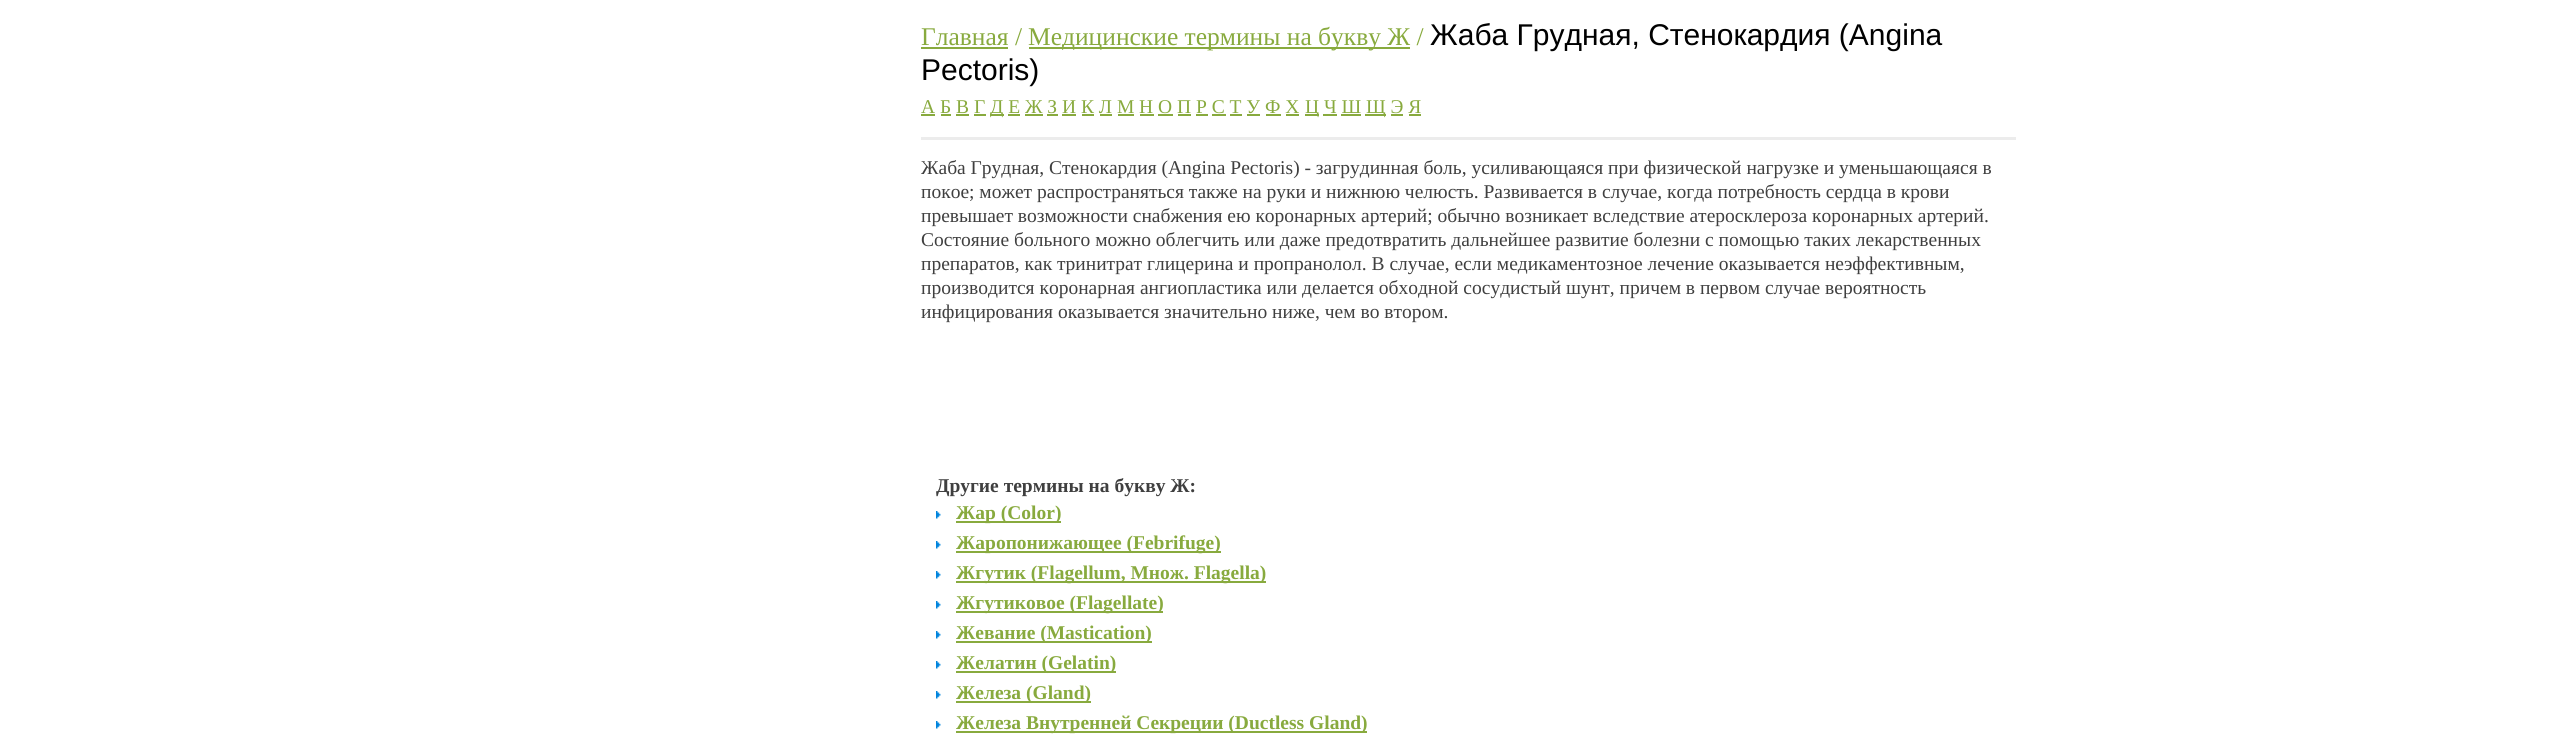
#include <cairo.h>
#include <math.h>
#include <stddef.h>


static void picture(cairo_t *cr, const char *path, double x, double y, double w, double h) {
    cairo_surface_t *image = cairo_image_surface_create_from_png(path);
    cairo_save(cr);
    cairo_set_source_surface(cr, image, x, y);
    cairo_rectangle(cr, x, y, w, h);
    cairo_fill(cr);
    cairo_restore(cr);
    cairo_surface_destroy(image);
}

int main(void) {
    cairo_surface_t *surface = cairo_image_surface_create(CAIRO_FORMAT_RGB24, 2561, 745);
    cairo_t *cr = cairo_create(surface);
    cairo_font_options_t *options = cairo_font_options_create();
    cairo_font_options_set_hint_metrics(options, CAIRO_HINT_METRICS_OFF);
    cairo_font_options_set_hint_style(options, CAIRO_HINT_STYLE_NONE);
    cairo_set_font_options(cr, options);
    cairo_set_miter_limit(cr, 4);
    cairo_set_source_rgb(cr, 1, 1, 1);
    cairo_paint(cr);
    cairo_select_font_face(cr, "Liberation Serif", CAIRO_FONT_SLANT_NORMAL, CAIRO_FONT_WEIGHT_NORMAL);
    cairo_set_font_size(cr, 25.5);
    cairo_set_source_rgb(cr, 0.533, 0.667, 0.243);
    cairo_move_to(cr, 921, 45);
    cairo_show_text(cr, "Главная /");
    cairo_rectangle(cr, 921, 47, 87, 2);
    cairo_fill(cr);
    cairo_rectangle(cr, 1029, 47, 381, 2);
    cairo_fill(cr);
    cairo_move_to(cr, 1028, 45);
    cairo_show_text(cr, "Медицинские термины на букву Ж /");
    cairo_select_font_face(cr, "Liberation Sans", CAIRO_FONT_SLANT_NORMAL, CAIRO_FONT_WEIGHT_NORMAL);
    cairo_set_font_size(cr, 30);
    cairo_set_source_rgb(cr, 0, 0, 0);
    cairo_move_to(cr, 1430, 45);
    cairo_show_text(cr, "Жаба Грудная, Стенокардия (Angina");
    cairo_move_to(cr, 921, 80);
    cairo_show_text(cr, "Pectoris)");
    cairo_select_font_face(cr, "Liberation Serif", CAIRO_FONT_SLANT_NORMAL, CAIRO_FONT_WEIGHT_NORMAL);
    cairo_set_font_size(cr, 19.5);
    cairo_set_source_rgb(cr, 0.533, 0.667, 0.243);
    cairo_move_to(cr, 921, 113);
    cairo_show_text(cr, "А Б В Г");
    cairo_rectangle(cr, 921, 114, 14, 2);
    cairo_fill(cr);
    cairo_rectangle(cr, 990, 114, 14, 2);
    cairo_fill(cr);
    cairo_move_to(cr, 990, 113);
    cairo_show_text(cr, "Д E Ж З И К Л М Н О П Р С Т У Ф Х");
    cairo_rectangle(cr, 1305, 114, 14, 2);
    cairo_fill(cr);
    cairo_move_to(cr, 1305, 113);
    cairo_show_text(cr, "Ц Ч Ш");
    cairo_rectangle(cr, 1365, 114, 21, 2);
    cairo_fill(cr);
    cairo_move_to(cr, 1366, 113);
    cairo_show_text(cr, "Щ Э Я");
    cairo_rectangle(cr, 941, 114, 10, 2);
    cairo_fill(cr);
    cairo_rectangle(cr, 956, 114, 13, 2);
    cairo_fill(cr);
    cairo_rectangle(cr, 974, 114, 12, 2);
    cairo_fill(cr);
    cairo_rectangle(cr, 1008, 114, 12, 2);
    cairo_fill(cr);
    cairo_rectangle(cr, 1025, 114, 18, 2);
    cairo_fill(cr);
    cairo_rectangle(cr, 1047, 114, 11, 2);
    cairo_fill(cr);
    cairo_rectangle(cr, 1062, 114, 14, 2);
    cairo_fill(cr);
    cairo_rectangle(cr, 1082, 114, 12, 2);
    cairo_fill(cr);
    cairo_rectangle(cr, 1100, 114, 12, 2);
    cairo_fill(cr);
    cairo_rectangle(cr, 1118, 114, 16, 2);
    cairo_fill(cr);
    cairo_rectangle(cr, 1140, 114, 14, 2);
    cairo_fill(cr);
    cairo_rectangle(cr, 1158, 114, 15, 2);
    cairo_fill(cr);
    cairo_rectangle(cr, 1178, 114, 13, 2);
    cairo_fill(cr);
    cairo_rectangle(cr, 1196, 114, 12, 2);
    cairo_fill(cr);
    cairo_rectangle(cr, 1212, 114, 14, 2);
    cairo_fill(cr);
    cairo_rectangle(cr, 1230, 114, 12, 2);
    cairo_fill(cr);
    cairo_rectangle(cr, 1247, 114, 13, 2);
    cairo_fill(cr);
    cairo_rectangle(cr, 1266, 114, 15, 2);
    cairo_fill(cr);
    cairo_rectangle(cr, 1286, 114, 13, 2);
    cairo_fill(cr);
    cairo_rectangle(cr, 1323, 114, 14, 2);
    cairo_fill(cr);
    cairo_rectangle(cr, 1341, 114, 20, 2);
    cairo_fill(cr);
    cairo_rectangle(cr, 1391, 114, 12, 2);
    cairo_fill(cr);
    cairo_rectangle(cr, 1409, 114, 12, 2);
    cairo_fill(cr);
    cairo_set_source_rgb(cr, 0.922, 0.922, 0.922);
    cairo_rectangle(cr, 921, 137, 1095, 3);
    cairo_fill(cr);
    cairo_set_source_rgb(cr, 0.247, 0.247, 0.247);
    cairo_move_to(cr, 921, 174);
    cairo_show_text(cr, "Жаба Грудная, Стенокардия (Angina Pectoris) - загрудинная боль, усиливающаяся при физической нагрузке и уменьшающаяся в");
    cairo_move_to(cr, 921, 198);
    cairo_show_text(cr, "покое; может распространяться также на руки и нижнюю челюсть. Развивается в случае, когда потребность сердца в крови");
    cairo_move_to(cr, 921, 222);
    cairo_show_text(cr, "превышает возможности снабжения ею коронарных артерий; обычно возникает вследствие атеросклероза коронарных артерий.");
    cairo_move_to(cr, 921, 246);
    cairo_show_text(cr, "Состояние больного можно облегчить или даже предотвратить дальнейшее развитие болезни с помощью таких лекарственных");
    cairo_move_to(cr, 921, 270);
    cairo_show_text(cr, "препаратов, как тринитрат глицерина и пропранолол. В случае, если медикаментозное лечение оказывается неэффективным,");
    cairo_move_to(cr, 921, 294);
    cairo_show_text(cr, "производится коронарная ангиопластика или делается обходной сосудистый шунт, причем в первом случае вероятность");
    cairo_move_to(cr, 921, 318);
    cairo_show_text(cr, "инфицирования оказывается значительно ниже, чем во втором.");
    cairo_select_font_face(cr, "Liberation Serif", CAIRO_FONT_SLANT_NORMAL, CAIRO_FONT_WEIGHT_BOLD);
    cairo_move_to(cr, 936, 492);
    cairo_show_text(cr, "Другие термины на букву Ж:");
    picture(cr, "img1.png", 936, 511, 5, 8);
    cairo_set_source_rgb(cr, 0.533, 0.667, 0.243);
    cairo_rectangle(cr, 956, 521, 105, 2);
    cairo_fill(cr);
    cairo_move_to(cr, 956, 519);
    cairo_show_text(cr, "Жар (Color)");
    picture(cr, "img1.png", 936, 541, 5, 8);
    cairo_rectangle(cr, 956, 551, 265, 2);
    cairo_fill(cr);
    cairo_move_to(cr, 956, 549);
    cairo_show_text(cr, "Жаропонижающее (Febrifuge)");
    picture(cr, "img1.png", 936, 571, 5, 8);
    cairo_rectangle(cr, 956, 581, 310, 2);
    cairo_fill(cr);
    cairo_move_to(cr, 956, 579);
    cairo_show_text(cr, "Жгутик (Flagellum, Множ. Flagella)");
    picture(cr, "img1.png", 936, 601, 5, 8);
    cairo_rectangle(cr, 956, 611, 207, 2);
    cairo_fill(cr);
    cairo_move_to(cr, 956, 609);
    cairo_show_text(cr, "Жгутиковое (Flagellate)");
    picture(cr, "img1.png", 936, 631, 5, 8);
    cairo_rectangle(cr, 956, 641, 196, 2);
    cairo_fill(cr);
    cairo_move_to(cr, 956, 639);
    cairo_show_text(cr, "Жевание (Mastication)");
    picture(cr, "img1.png", 936, 661, 5, 8);
    cairo_rectangle(cr, 956, 671, 160, 2);
    cairo_fill(cr);
    cairo_move_to(cr, 956, 669);
    cairo_show_text(cr, "Желатин (Gelatin)");
    picture(cr, "img1.png", 936, 691, 5, 8);
    cairo_rectangle(cr, 956, 701, 135, 2);
    cairo_fill(cr);
    cairo_move_to(cr, 956, 699);
    cairo_show_text(cr, "Железа (Gland)");
    picture(cr, "img1.png", 936, 721, 5, 8);
    cairo_rectangle(cr, 956, 731, 411, 2);
    cairo_fill(cr);
    cairo_move_to(cr, 956, 729);
    cairo_show_text(cr, "Железа Внутренней Секреции (Ductless Gland)");
    cairo_surface_write_to_png(surface, "page.png");
    cairo_font_options_destroy(options);
    cairo_destroy(cr);
    cairo_surface_destroy(surface);
    return 0;
}
